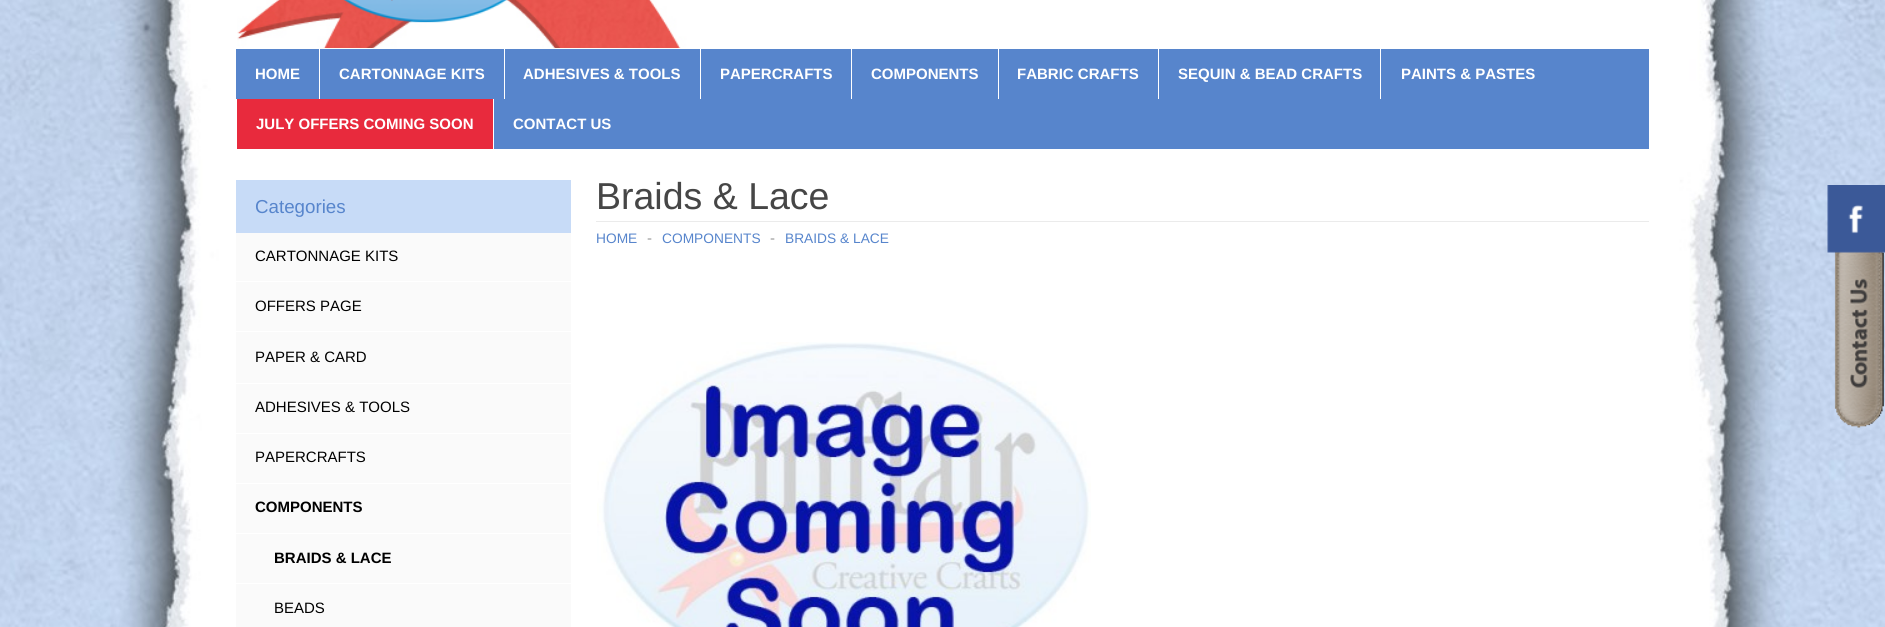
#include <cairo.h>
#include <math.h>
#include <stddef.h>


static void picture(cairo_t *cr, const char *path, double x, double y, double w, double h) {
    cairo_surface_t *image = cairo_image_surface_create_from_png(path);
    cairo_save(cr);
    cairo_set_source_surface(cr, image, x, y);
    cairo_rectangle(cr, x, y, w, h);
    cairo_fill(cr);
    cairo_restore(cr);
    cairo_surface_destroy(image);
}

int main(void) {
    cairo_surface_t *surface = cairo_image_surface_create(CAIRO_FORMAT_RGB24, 1885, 627);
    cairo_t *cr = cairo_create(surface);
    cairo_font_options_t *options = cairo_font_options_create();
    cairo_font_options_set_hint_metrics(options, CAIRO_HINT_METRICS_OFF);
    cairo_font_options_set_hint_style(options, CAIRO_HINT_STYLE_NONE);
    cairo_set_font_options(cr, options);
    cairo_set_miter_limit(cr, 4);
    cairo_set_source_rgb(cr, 1, 1, 1);
    cairo_paint(cr);
    picture(cr, "img1.png", 0, 0, 1885, 627);
    picture(cr, "img2.png", 237, 0, 464, 48);
    picture(cr, "img3.png", 343, 0, 165, 23);
    cairo_set_source_rgb(cr, 0.341, 0.522, 0.8);
    cairo_rectangle(cr, 236, 49, 1413, 100);
    cairo_fill(cr);
    cairo_select_font_face(cr, "Liberation Sans", CAIRO_FONT_SLANT_NORMAL, CAIRO_FONT_WEIGHT_BOLD);
    cairo_set_font_size(cr, 15);
    cairo_set_source_rgb(cr, 1, 1, 1);
    cairo_move_to(cr, 255, 79);
    cairo_show_text(cr, "HOME");
    cairo_rectangle(cr, 319, 49, 1, 50);
    cairo_fill(cr);
    cairo_move_to(cr, 339, 79);
    cairo_show_text(cr, "CARTONNAGE KITS");
    cairo_rectangle(cr, 504, 49, 1, 50);
    cairo_fill(cr);
    cairo_move_to(cr, 523, 79);
    cairo_show_text(cr, "ADHESIVES & TOOLS");
    cairo_rectangle(cr, 700, 49, 1, 50);
    cairo_fill(cr);
    cairo_move_to(cr, 720, 79);
    cairo_show_text(cr, "PAPERCRAFTS");
    cairo_rectangle(cr, 851, 49, 1, 50);
    cairo_fill(cr);
    cairo_move_to(cr, 871, 79);
    cairo_show_text(cr, "COMPONENTS");
    cairo_rectangle(cr, 998, 49, 1, 50);
    cairo_fill(cr);
    cairo_move_to(cr, 1017, 79);
    cairo_show_text(cr, "FABRIC CRAFTS");
    cairo_rectangle(cr, 1158, 49, 1, 50);
    cairo_fill(cr);
    cairo_move_to(cr, 1178, 79);
    cairo_show_text(cr, "SEQUIN & BEAD CRAFTS");
    cairo_rectangle(cr, 1380, 49, 1, 50);
    cairo_fill(cr);
    cairo_move_to(cr, 1401, 79);
    cairo_show_text(cr, "PAINTS & PASTES");
    cairo_set_source_rgb(cr, 0.91, 0.165, 0.239);
    cairo_rectangle(cr, 237, 99, 256, 50);
    cairo_fill(cr);
    cairo_set_source_rgb(cr, 1, 1, 1);
    cairo_rectangle(cr, 236, 99, 1, 50);
    cairo_fill(cr);
    cairo_move_to(cr, 256, 129);
    cairo_show_text(cr, "JULY OFFERS COMING SOON");
    cairo_rectangle(cr, 493, 99, 1, 50);
    cairo_fill(cr);
    cairo_move_to(cr, 513, 129);
    cairo_show_text(cr, "CONTACT US");
    cairo_set_source_rgb(cr, 0.78, 0.859, 0.965);
    cairo_rectangle(cr, 236, 180, 335, 53);
    cairo_fill(cr);
    cairo_select_font_face(cr, "Liberation Sans", CAIRO_FONT_SLANT_NORMAL, CAIRO_FONT_WEIGHT_NORMAL);
    cairo_set_font_size(cr, 18.75);
    cairo_set_source_rgb(cr, 0.341, 0.522, 0.8);
    cairo_move_to(cr, 255, 213);
    cairo_show_text(cr, "Categories");
    cairo_set_source_rgb(cr, 0.98, 0.98, 0.98);
    cairo_rectangle(cr, 236, 233, 335, 394);
    cairo_fill(cr);
    cairo_set_font_size(cr, 15);
    cairo_set_source_rgb(cr, 0, 0, 0);
    cairo_move_to(cr, 255, 261);
    cairo_show_text(cr, "CARTONNAGE KITS");
    cairo_set_source_rgb(cr, 1, 1, 1);
    cairo_rectangle(cr, 236, 281, 335, 1);
    cairo_fill(cr);
    cairo_set_source_rgb(cr, 0, 0, 0);
    cairo_move_to(cr, 255, 311);
    cairo_show_text(cr, "OFFERS PAGE");
    cairo_set_source_rgb(cr, 1, 1, 1);
    cairo_rectangle(cr, 236, 331, 335, 1);
    cairo_fill(cr);
    cairo_set_source_rgb(cr, 0, 0, 0);
    cairo_move_to(cr, 255, 362);
    cairo_show_text(cr, "PAPER & CARD");
    cairo_set_source_rgb(cr, 1, 1, 1);
    cairo_rectangle(cr, 236, 383, 335, 1);
    cairo_fill(cr);
    cairo_set_source_rgb(cr, 0, 0, 0);
    cairo_move_to(cr, 255, 412);
    cairo_show_text(cr, "ADHESIVES & TOOLS");
    cairo_set_source_rgb(cr, 1, 1, 1);
    cairo_rectangle(cr, 236, 433, 335, 1);
    cairo_fill(cr);
    cairo_set_source_rgb(cr, 0, 0, 0);
    cairo_move_to(cr, 255, 462);
    cairo_show_text(cr, "PAPERCRAFTS");
    cairo_set_source_rgb(cr, 1, 1, 1);
    cairo_rectangle(cr, 236, 483, 335, 1);
    cairo_fill(cr);
    cairo_select_font_face(cr, "Liberation Sans", CAIRO_FONT_SLANT_NORMAL, CAIRO_FONT_WEIGHT_BOLD);
    cairo_set_source_rgb(cr, 0, 0, 0);
    cairo_move_to(cr, 255, 512);
    cairo_show_text(cr, "COMPONENTS");
    cairo_set_source_rgb(cr, 1, 1, 1);
    cairo_rectangle(cr, 236, 533, 335, 1);
    cairo_fill(cr);
    cairo_set_source_rgb(cr, 0, 0, 0);
    cairo_move_to(cr, 274, 563);
    cairo_show_text(cr, "BRAIDS & LACE");
    cairo_set_source_rgb(cr, 1, 1, 1);
    cairo_rectangle(cr, 236, 583, 335, 1);
    cairo_fill(cr);
    cairo_select_font_face(cr, "Liberation Sans", CAIRO_FONT_SLANT_NORMAL, CAIRO_FONT_WEIGHT_NORMAL);
    cairo_set_source_rgb(cr, 0, 0, 0);
    cairo_move_to(cr, 274, 613);
    cairo_show_text(cr, "BEADS");
    cairo_set_source_rgb(cr, 0.918, 0.918, 0.918);
    cairo_rectangle(cr, 596, 221, 1053, 1);
    cairo_fill(cr);
    cairo_set_font_size(cr, 37.5);
    cairo_set_source_rgb(cr, 0.275, 0.275, 0.275);
    cairo_move_to(cr, 596, 209);
    cairo_show_text(cr, "Braids & Lace");
    cairo_set_font_size(cr, 13.75);
    cairo_set_source_rgb(cr, 0.341, 0.522, 0.8);
    cairo_move_to(cr, 596, 243);
    cairo_show_text(cr, "HOME");
    cairo_set_font_size(cr, 15);
    cairo_set_source_rgb(cr, 0.6, 0.6, 0.6);
    cairo_move_to(cr, 647, 243);
    cairo_show_text(cr, "-");
    cairo_set_font_size(cr, 13.75);
    cairo_set_source_rgb(cr, 0.341, 0.522, 0.8);
    cairo_move_to(cr, 662, 243);
    cairo_show_text(cr, "COMPONENTS");
    cairo_set_font_size(cr, 15);
    cairo_set_source_rgb(cr, 0.6, 0.6, 0.6);
    cairo_move_to(cr, 770, 243);
    cairo_show_text(cr, "-");
    cairo_set_font_size(cr, 13.75);
    cairo_set_source_rgb(cr, 0.341, 0.522, 0.8);
    cairo_move_to(cr, 785, 243);
    cairo_show_text(cr, "BRAIDS & LACE");
    picture(cr, "img4.png", 597, 342, 494, 285);
    picture(cr, "img6.png", 1834, 251, 50, 177);
    picture(cr, "img5.png", 1827, 185, 58, 68);
    cairo_surface_write_to_png(surface, "page.png");
    cairo_font_options_destroy(options);
    cairo_destroy(cr);
    cairo_surface_destroy(surface);
    return 0;
}
